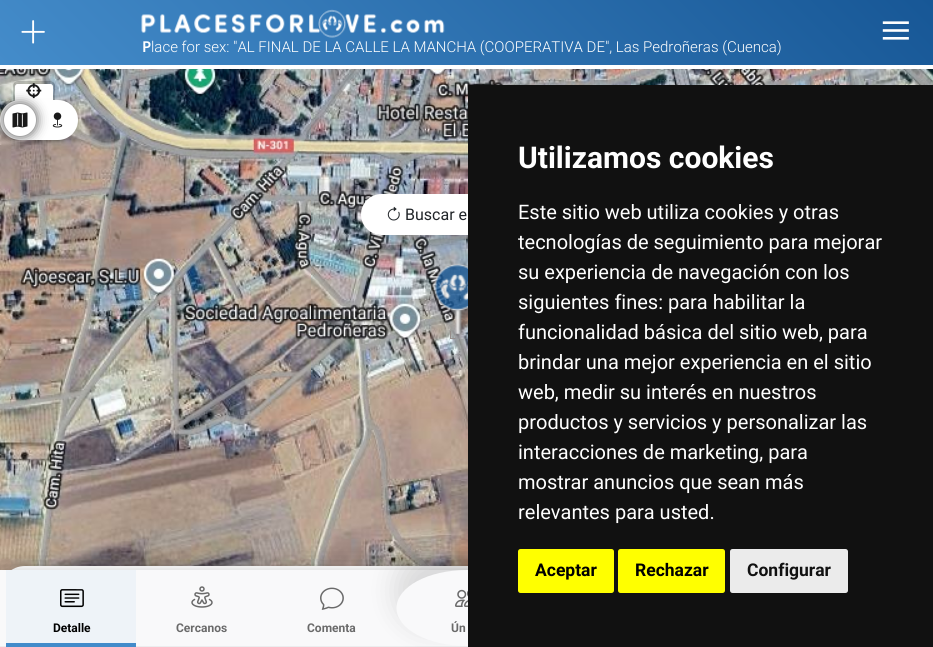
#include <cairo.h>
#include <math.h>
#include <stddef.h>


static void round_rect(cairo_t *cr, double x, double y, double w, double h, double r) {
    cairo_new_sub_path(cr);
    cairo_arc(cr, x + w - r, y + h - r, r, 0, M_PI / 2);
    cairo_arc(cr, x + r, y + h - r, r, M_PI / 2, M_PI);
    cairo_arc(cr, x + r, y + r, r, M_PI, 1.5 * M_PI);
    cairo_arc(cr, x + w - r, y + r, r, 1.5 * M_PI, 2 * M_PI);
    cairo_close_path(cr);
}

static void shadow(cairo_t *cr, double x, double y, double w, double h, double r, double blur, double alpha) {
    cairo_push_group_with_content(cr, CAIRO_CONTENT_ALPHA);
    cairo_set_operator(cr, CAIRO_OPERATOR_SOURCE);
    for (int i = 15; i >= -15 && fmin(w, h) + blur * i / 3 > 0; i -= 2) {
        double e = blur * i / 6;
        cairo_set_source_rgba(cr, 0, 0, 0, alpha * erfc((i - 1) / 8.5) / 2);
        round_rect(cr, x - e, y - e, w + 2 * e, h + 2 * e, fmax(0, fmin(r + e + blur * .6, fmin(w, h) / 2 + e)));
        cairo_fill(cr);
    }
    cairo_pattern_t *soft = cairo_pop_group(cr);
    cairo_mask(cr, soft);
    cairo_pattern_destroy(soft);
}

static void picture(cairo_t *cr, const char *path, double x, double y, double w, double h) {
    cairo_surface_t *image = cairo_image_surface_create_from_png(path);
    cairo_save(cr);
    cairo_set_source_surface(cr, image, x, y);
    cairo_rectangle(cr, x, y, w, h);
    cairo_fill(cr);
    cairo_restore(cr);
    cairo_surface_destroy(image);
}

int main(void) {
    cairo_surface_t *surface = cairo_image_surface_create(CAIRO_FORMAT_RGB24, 933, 647);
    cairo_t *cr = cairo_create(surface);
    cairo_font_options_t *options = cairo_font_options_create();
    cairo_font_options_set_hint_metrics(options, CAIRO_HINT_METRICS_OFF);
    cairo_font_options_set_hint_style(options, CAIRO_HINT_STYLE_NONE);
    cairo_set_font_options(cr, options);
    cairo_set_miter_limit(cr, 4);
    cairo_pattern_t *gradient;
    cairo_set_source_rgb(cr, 1, 1, 1);
    cairo_paint(cr);
    gradient = cairo_pattern_create_linear(217, 282, 717, -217);
    cairo_pattern_add_color_stop_rgba(gradient, 0, 0.267, 0.549, 0.792, 1);
    cairo_pattern_add_color_stop_rgba(gradient, 1, 0.09, 0.341, 0.588, 1);
    cairo_set_source(cr, gradient);
    cairo_pattern_destroy(gradient);
    cairo_rectangle(cr, 0, 0, 933, 65);
    cairo_fill(cr);
    picture(cr, "img1.png", 21, 20, 24, 24);
    picture(cr, "img2.png", 882, 21, 27, 19);
    picture(cr, "img3.png", 141, 9, 304, 29);
    cairo_select_font_face(cr, "Noto Sans SemiBold", CAIRO_FONT_SLANT_NORMAL, CAIRO_FONT_WEIGHT_NORMAL);
    cairo_set_font_size(cr, 15);
    cairo_set_source_rgb(cr, 1, 1, 1);
    cairo_move_to(cr, 142, 52);
    cairo_show_text(cr, "P");
    cairo_select_font_face(cr, "Roboto Light", CAIRO_FONT_SLANT_NORMAL, CAIRO_FONT_WEIGHT_NORMAL);
    cairo_move_to(cr, 151, 52);
    cairo_show_text(cr, "lace for sex: \"AL FINAL DE LA CALLE LA MANCHA (COOPERATIVA DE\", Las Pedroñeras (Cuenca)");
    picture(cr, "img8.png", 0, 69, 311, 250);
    round_rect(cr, 14.5, 82.5, 39, 40, 3.5);
    cairo_set_source_rgba(cr, 0, 0, 0, 0.2);
    cairo_set_line_width(cr, 3);
    cairo_stroke(cr);
    cairo_set_source_rgb(cr, 1, 1, 1);
    round_rect(cr, 15, 84, 38, 37, 2.5);
    cairo_fill(cr);
    picture(cr, "img7.png", 26, 83, 16, 16);
    cairo_set_source_rgb(cr, 0, 0, 0);
    shadow(cr, 13, 103, 52, 40, 0, 2.5, 0.1);
    cairo_set_source_rgb(cr, 1, 1, 1);
    round_rect(cr, 0, 100, 78, 40, 20);
    cairo_fill(cr);
    cairo_set_source_rgb(cr, 0, 0, 0);
    shadow(cr, 4, 104, 32, 32, 16, 6, 0.7);
    cairo_set_source_rgb(cr, 1, 1, 1);
    cairo_arc(cr, 20, 120, 16, 0, 2 * M_PI);
    cairo_fill(cr);
    picture(cr, "img4.png", 12, 112, 16, 16);
    picture(cr, "img5.png", 52, 112, 11, 16);
    picture(cr, "img9.png", 311, 69, 320, 250);
    picture(cr, "img12.png", 311, 319, 157, 247);
    picture(cr, "img13.png", 433, 263, 35, 73);
    cairo_set_source_rgb(cr, 0, 0, 0);
    shadow(cr, 361, 198, 213, 41, 20.5, 8, 0.15);
    cairo_set_source_rgb(cr, 1, 1, 1);
    round_rect(cr, 361, 194, 213, 41, 20.5);
    cairo_fill(cr);
    picture(cr, "img6.png", 387, 206, 13, 15);
    cairo_select_font_face(cr, "Roboto", CAIRO_FONT_SLANT_NORMAL, CAIRO_FONT_WEIGHT_NORMAL);
    cairo_set_font_size(cr, 16);
    cairo_set_source_rgb(cr, 0.129, 0.145, 0.161);
    cairo_move_to(cr, 405, 220);
    cairo_show_text(cr, "Buscar e");
    picture(cr, "img10.png", 631, 69, 302, 16);
    picture(cr, "img11.png", 0, 319, 311, 251);
    cairo_select_font_face(cr, "Liberation Sans", CAIRO_FONT_SLANT_NORMAL, CAIRO_FONT_WEIGHT_NORMAL);
    cairo_set_font_size(cr, 12);
    cairo_set_source_rgb(cr, 0.584, 0.553, 0.541);
    cairo_move_to(cr, 449, 339);
    cairo_show_text(cr, "L");
    cairo_set_source_rgb(cr, 0, 0, 0);
    shadow(cr, 0, 571, 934, 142, 25, 13.5, 0.25);
    cairo_set_source_rgb(cr, 1, 1, 1);
    round_rect(cr, 0, 566, 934, 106, 25);
    cairo_fill(cr);
    cairo_set_source_rgb(cr, 0, 0, 0);
    shadow(cr, 0, 575, 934, 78, 0, 13.5, 0.25);
    cairo_set_source_rgb(cr, 0.973, 0.976, 0.98);
    cairo_rectangle(cr, 0, 570, 466, 76);
    cairo_fill(cr);
    cairo_set_source_rgb(cr, 0.925, 0.929, 0.933);
    cairo_rectangle(cr, 0, 646, 468, 1);
    cairo_fill(cr);
    cairo_set_source_rgb(cr, 0.933, 0.953, 0.969);
    cairo_rectangle(cr, 6, 570, 130, 73);
    cairo_fill(cr);
    cairo_set_source_rgb(cr, 0.259, 0.545, 0.792);
    cairo_rectangle(cr, 6, 643, 130, 4);
    cairo_fill(cr);
    picture(cr, "img14.png", 60, 589, 24, 19);
    cairo_select_font_face(cr, "Roboto", CAIRO_FONT_SLANT_NORMAL, CAIRO_FONT_WEIGHT_BOLD);
    cairo_set_source_rgb(cr, 0, 0, 0);
    cairo_move_to(cr, 53, 632);
    cairo_show_text(cr, "Detalle");
    cairo_select_font_face(cr, "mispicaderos", CAIRO_FONT_SLANT_NORMAL, CAIRO_FONT_WEIGHT_NORMAL);
    cairo_set_font_size(cr, 24);
    cairo_set_source_rgb(cr, 0.416, 0.416, 0.416);
    cairo_move_to(cr, 190, 609);
    cairo_show_text(cr, "'");
    cairo_select_font_face(cr, "Roboto", CAIRO_FONT_SLANT_NORMAL, CAIRO_FONT_WEIGHT_BOLD);
    cairo_set_font_size(cr, 12);
    cairo_move_to(cr, 176, 632);
    cairo_show_text(cr, "Cercanos");
    picture(cr, "img15.png", 320, 587, 24, 23);
    cairo_move_to(cr, 307, 632);
    cairo_show_text(cr, "Comenta");
    cairo_set_source_rgb(cr, 0, 0, 0);
    shadow(cr, 396, 553, 142, 76, 38, 13.5, 0.13);
    cairo_set_source_rgb(cr, 0.973, 0.976, 0.98);
    cairo_new_path(cr);
    cairo_move_to(cr, 467, 570);
    cairo_curve_to(cr, 506, 570, 537.5, 587, 537.5, 608);
    cairo_curve_to(cr, 537.5, 629, 506, 646, 467, 646);
    cairo_curve_to(cr, 428, 646, 396.5, 629, 396.5, 608);
    cairo_curve_to(cr, 396.5, 587, 428, 570, 467, 570);
    cairo_close_path(cr);
    cairo_fill(cr);
    picture(cr, "img16.png", 455, 589, 13, 18);
    cairo_set_source_rgb(cr, 0.416, 0.416, 0.416);
    cairo_move_to(cr, 451, 632);
    cairo_show_text(cr, "Ún");
    cairo_set_source_rgb(cr, 0.067, 0.067, 0.067);
    cairo_rectangle(cr, 468, 85, 465, 562);
    cairo_fill(cr);
    cairo_set_font_size(cr, 30);
    cairo_set_source_rgb(cr, 1, 1, 1);
    cairo_move_to(cr, 518, 168);
    cairo_show_text(cr, "Utilizamos cookies");
    cairo_select_font_face(cr, "Roboto", CAIRO_FONT_SLANT_NORMAL, CAIRO_FONT_WEIGHT_NORMAL);
    cairo_set_font_size(cr, 20);
    cairo_move_to(cr, 518, 219);
    cairo_show_text(cr, "Este sitio web utiliza cookies y otras");
    cairo_move_to(cr, 518, 249);
    cairo_show_text(cr, "tecnologías de seguimiento para mejorar");
    cairo_move_to(cr, 518, 279);
    cairo_show_text(cr, "su experiencia de navegación con los");
    cairo_move_to(cr, 518, 309);
    cairo_show_text(cr, "siguientes fines: para habilitar la");
    cairo_move_to(cr, 518, 339);
    cairo_show_text(cr, "funcionalidad básica del sitio web, para");
    cairo_move_to(cr, 518, 369);
    cairo_show_text(cr, "brindar una mejor experiencia en el sitio");
    cairo_move_to(cr, 518, 399);
    cairo_show_text(cr, "web, medir su interés en nuestros");
    cairo_move_to(cr, 518, 429);
    cairo_show_text(cr, "productos y servicios y personalizar las");
    cairo_move_to(cr, 518, 459);
    cairo_show_text(cr, "interacciones de marketing, para");
    cairo_move_to(cr, 518, 489);
    cairo_show_text(cr, "mostrar anuncios que sean más");
    cairo_move_to(cr, 518, 519);
    cairo_show_text(cr, "relevantes para usted.");
    cairo_set_source_rgb(cr, 1, 1, 0);
    round_rect(cr, 518, 549, 96, 44, 2.5);
    cairo_fill(cr);
    cairo_select_font_face(cr, "Roboto", CAIRO_FONT_SLANT_NORMAL, CAIRO_FONT_WEIGHT_BOLD);
    cairo_set_font_size(cr, 17.5);
    cairo_set_source_rgb(cr, 0, 0, 0);
    cairo_move_to(cr, 535, 576);
    cairo_show_text(cr, "Aceptar");
    cairo_set_source_rgb(cr, 1, 1, 0);
    round_rect(cr, 618, 549, 107, 44, 2.5);
    cairo_fill(cr);
    cairo_set_source_rgb(cr, 0, 0, 0);
    cairo_move_to(cr, 635, 576);
    cairo_show_text(cr, "Rechazar");
    cairo_set_source_rgb(cr, 0.918, 0.918, 0.918);
    round_rect(cr, 730, 549, 118, 44, 2.5);
    cairo_fill(cr);
    cairo_set_source_rgb(cr, 0.067, 0.067, 0.067);
    cairo_move_to(cr, 747, 576);
    cairo_show_text(cr, "Configurar");
    cairo_surface_write_to_png(surface, "page.png");
    cairo_font_options_destroy(options);
    cairo_destroy(cr);
    cairo_surface_destroy(surface);
    return 0;
}
